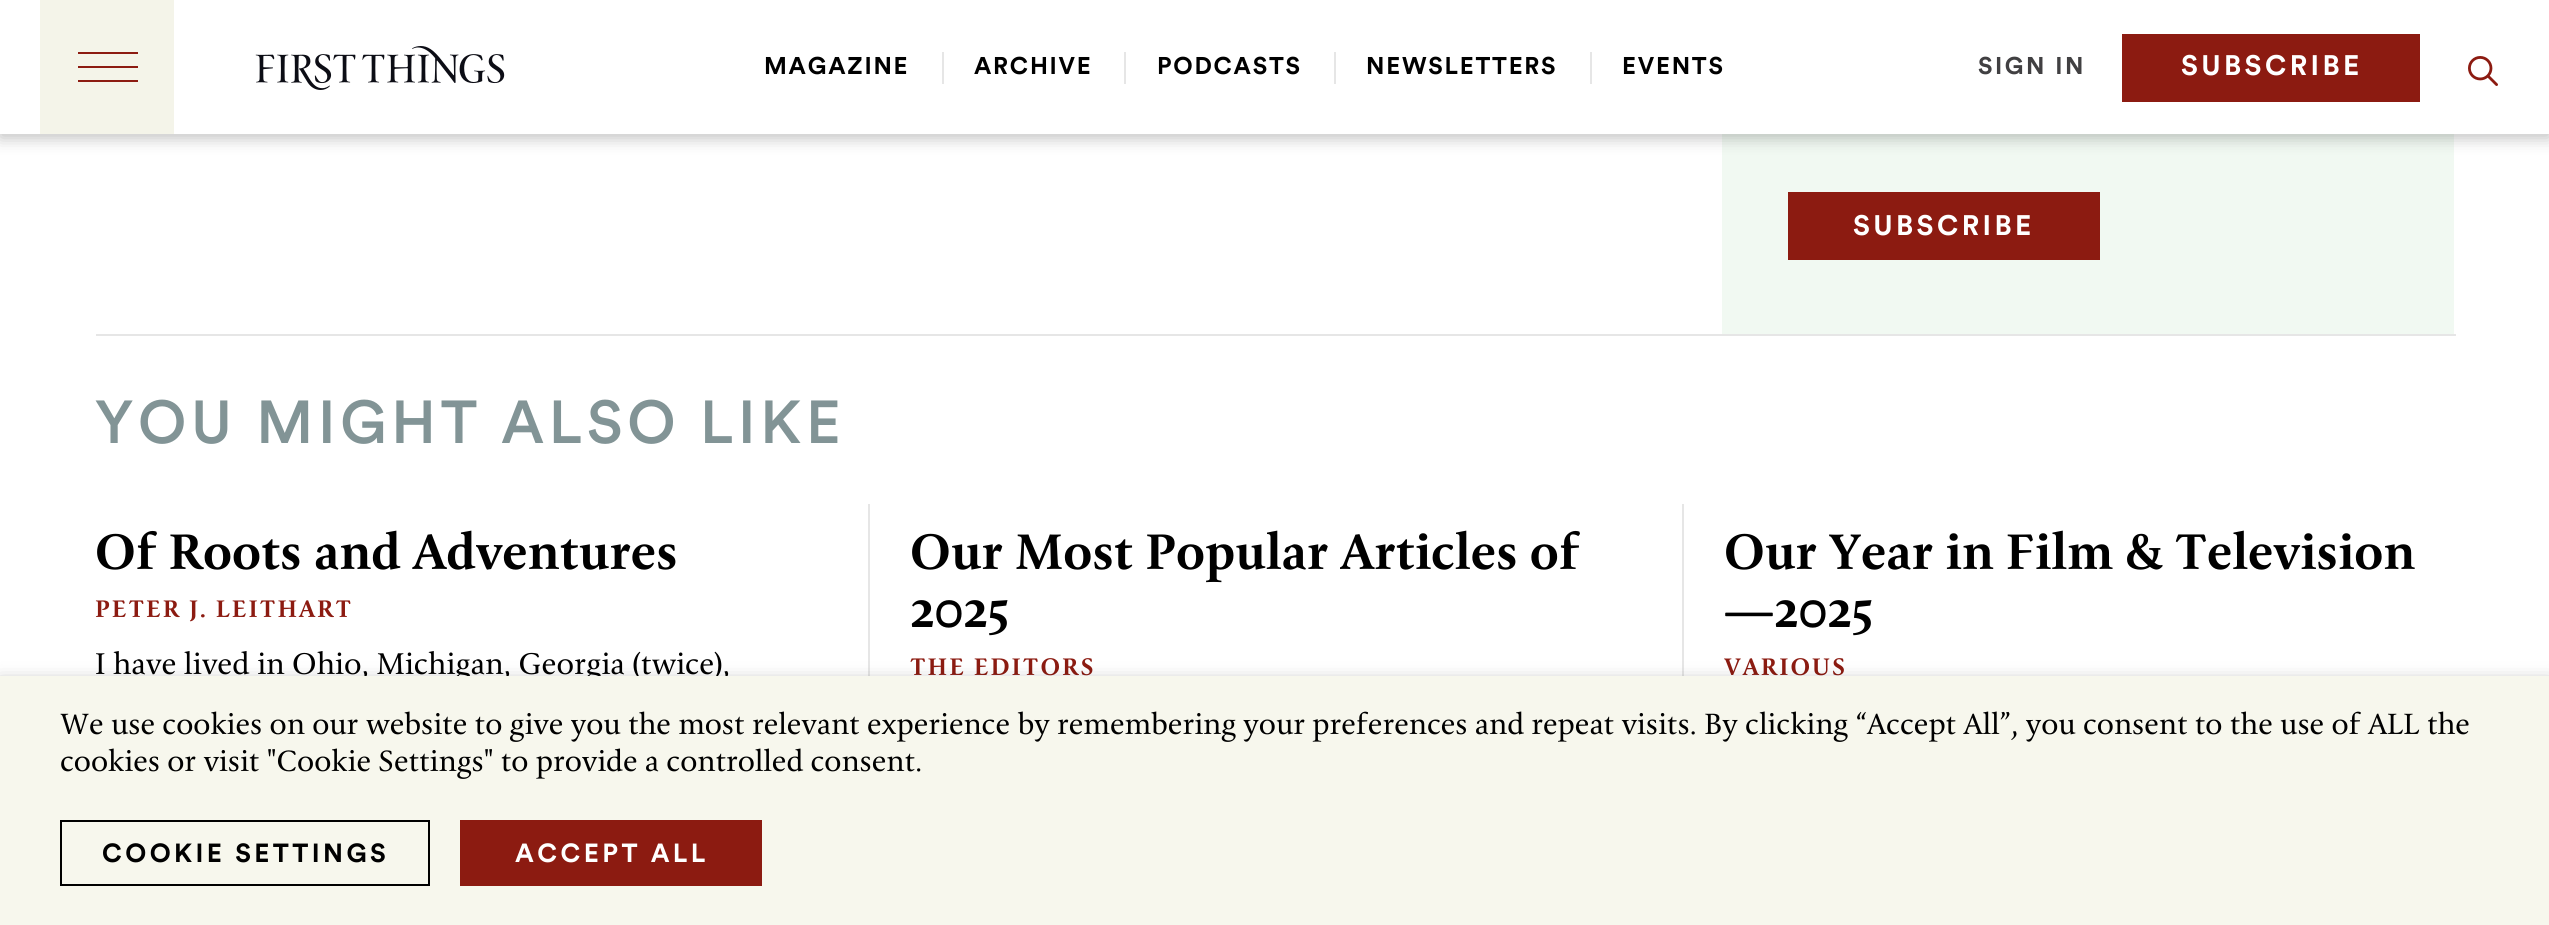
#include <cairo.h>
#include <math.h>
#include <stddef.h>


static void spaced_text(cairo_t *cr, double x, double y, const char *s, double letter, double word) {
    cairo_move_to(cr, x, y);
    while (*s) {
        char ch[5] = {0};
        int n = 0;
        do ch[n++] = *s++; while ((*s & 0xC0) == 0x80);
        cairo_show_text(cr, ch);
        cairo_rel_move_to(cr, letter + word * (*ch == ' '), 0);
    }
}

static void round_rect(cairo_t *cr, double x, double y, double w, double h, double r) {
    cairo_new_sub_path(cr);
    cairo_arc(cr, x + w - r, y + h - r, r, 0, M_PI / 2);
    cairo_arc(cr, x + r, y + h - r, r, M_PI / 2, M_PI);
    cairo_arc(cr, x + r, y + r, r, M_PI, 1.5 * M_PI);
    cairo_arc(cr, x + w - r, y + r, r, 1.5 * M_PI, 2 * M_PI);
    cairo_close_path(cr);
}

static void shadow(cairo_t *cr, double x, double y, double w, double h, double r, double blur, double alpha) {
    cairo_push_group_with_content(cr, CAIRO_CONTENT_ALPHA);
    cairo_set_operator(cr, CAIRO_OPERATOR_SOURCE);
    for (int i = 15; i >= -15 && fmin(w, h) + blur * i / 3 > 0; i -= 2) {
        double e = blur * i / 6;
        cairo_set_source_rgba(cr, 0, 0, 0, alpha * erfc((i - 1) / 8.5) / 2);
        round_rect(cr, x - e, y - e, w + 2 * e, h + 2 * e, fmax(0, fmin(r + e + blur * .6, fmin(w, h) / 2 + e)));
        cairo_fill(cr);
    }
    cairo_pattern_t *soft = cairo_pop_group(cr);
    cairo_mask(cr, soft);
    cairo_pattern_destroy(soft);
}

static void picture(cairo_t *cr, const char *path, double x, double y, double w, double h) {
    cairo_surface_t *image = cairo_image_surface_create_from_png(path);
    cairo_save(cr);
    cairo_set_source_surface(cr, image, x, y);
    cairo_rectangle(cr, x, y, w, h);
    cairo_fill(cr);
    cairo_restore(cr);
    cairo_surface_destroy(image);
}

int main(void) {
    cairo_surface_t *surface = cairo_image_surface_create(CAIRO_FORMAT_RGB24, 2549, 925);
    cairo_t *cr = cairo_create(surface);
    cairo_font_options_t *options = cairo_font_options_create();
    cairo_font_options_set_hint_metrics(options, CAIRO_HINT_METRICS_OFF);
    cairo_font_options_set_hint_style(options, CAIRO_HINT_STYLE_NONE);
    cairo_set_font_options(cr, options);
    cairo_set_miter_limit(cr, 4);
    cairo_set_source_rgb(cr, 1, 1, 1);
    cairo_paint(cr);
    cairo_set_source_rgb(cr, 0.945, 0.976, 0.949);
    cairo_rectangle(cr, 1722, 134, 732, 200);
    cairo_fill(cr);
    cairo_set_source_rgb(cr, 0, 0, 0);
    shadow(cr, 0, 4, 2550, 134, 0, 8, 0.25);
    cairo_set_source_rgb(cr, 1, 1, 1);
    cairo_rectangle(cr, 0, 0, 2549, 134);
    cairo_fill(cr);
    cairo_set_source_rgb(cr, 0.957, 0.957, 0.914);
    cairo_rectangle(cr, 40, 0, 134, 134);
    cairo_fill(cr);
    cairo_set_source_rgb(cr, 0.549, 0.106, 0.067);
    cairo_rectangle(cr, 78, 66, 60, 2);
    cairo_fill(cr);
    cairo_rectangle(cr, 78, 52, 60, 2);
    cairo_fill(cr);
    cairo_rectangle(cr, 78, 80, 60, 2);
    cairo_fill(cr);
    picture(cr, "img1.png", 255, 46, 250, 44);
    cairo_select_font_face(cr, "Circular", CAIRO_FONT_SLANT_NORMAL, CAIRO_FONT_WEIGHT_BOLD);
    cairo_set_font_size(cr, 24);
    cairo_set_source_rgb(cr, 0, 0, 0);
    spaced_text(cr, 764, 74, "MAGAZINE", 1.75, 0);
    cairo_set_source_rgb(cr, 0.902, 0.902, 0.902);
    cairo_rectangle(cr, 942, 52, 2, 32);
    cairo_fill(cr);
    cairo_set_source_rgb(cr, 0, 0, 0);
    spaced_text(cr, 974, 74, "ARCHIVE", 1.75, 0);
    cairo_set_source_rgb(cr, 0.902, 0.902, 0.902);
    cairo_rectangle(cr, 1124, 52, 2, 32);
    cairo_fill(cr);
    cairo_set_source_rgb(cr, 0, 0, 0);
    spaced_text(cr, 1157, 74, "PODCASTS", 1.75, 0);
    cairo_set_source_rgb(cr, 0.902, 0.902, 0.902);
    cairo_rectangle(cr, 1334, 52, 2, 32);
    cairo_fill(cr);
    cairo_set_source_rgb(cr, 0, 0, 0);
    spaced_text(cr, 1366, 74, "NEWSLETTERS", 1.75, 0);
    cairo_set_source_rgb(cr, 0.902, 0.902, 0.902);
    cairo_rectangle(cr, 1590, 52, 2, 32);
    cairo_fill(cr);
    cairo_set_source_rgb(cr, 0, 0, 0);
    spaced_text(cr, 1622, 74, "EVENTS", 1.75, 0);
    cairo_set_source_rgb(cr, 0.255, 0.251, 0.259);
    spaced_text(cr, 1978, 74, "SIGN IN", 2.5, 0);
    cairo_set_source_rgb(cr, 0.549, 0.106, 0.067);
    cairo_rectangle(cr, 2122, 34, 298, 68);
    cairo_fill(cr);
    cairo_set_font_size(cr, 28);
    cairo_set_source_rgb(cr, 1, 1, 1);
    spaced_text(cr, 2181, 75, "SUBSCRIBE", 3.4, 0);
    picture(cr, "img2.png", 2468, 56, 30, 30);
    cairo_set_source_rgb(cr, 0.549, 0.106, 0.067);
    cairo_rectangle(cr, 1788, 192, 312, 68);
    cairo_fill(cr);
    cairo_set_source_rgb(cr, 1, 1, 1);
    spaced_text(cr, 1853, 235, "SUBSCRIBE", 3.4, 0);
    cairo_set_source_rgb(cr, 0.902, 0.902, 0.902);
    cairo_rectangle(cr, 96, 334, 2360, 2);
    cairo_fill(cr);
    cairo_select_font_face(cr, "Circular Medium", CAIRO_FONT_SLANT_NORMAL, CAIRO_FONT_WEIGHT_NORMAL);
    cairo_set_font_size(cr, 60);
    cairo_set_source_rgb(cr, 0.51, 0.58, 0.588);
    spaced_text(cr, 95, 443, "YOU MIGHT ALSO LIKE", 4.7, 0);
    cairo_select_font_face(cr, "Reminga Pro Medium", CAIRO_FONT_SLANT_NORMAL, CAIRO_FONT_WEIGHT_NORMAL);
    cairo_set_font_size(cr, 50);
    cairo_set_source_rgb(cr, 0, 0, 0);
    cairo_move_to(cr, 95, 569);
    cairo_show_text(cr, "Of Roots and Adventures");
    cairo_set_font_size(cr, 24);
    cairo_set_source_rgb(cr, 0.549, 0.106, 0.067);
    spaced_text(cr, 95, 617, "PETER J. LEITHART", 2, 0);
    cairo_select_font_face(cr, "Reminga Pro", CAIRO_FONT_SLANT_NORMAL, CAIRO_FONT_WEIGHT_NORMAL);
    cairo_set_font_size(cr, 30);
    cairo_set_source_rgb(cr, 0, 0, 0);
    cairo_move_to(cr, 95, 674);
    cairo_show_text(cr, "I have lived in Ohio, Michigan, Georgia (twice),");
    cairo_set_source_rgb(cr, 0.902, 0.902, 0.902);
    cairo_rectangle(cr, 868, 504, 2, 172);
    cairo_fill(cr);
    cairo_select_font_face(cr, "Reminga Pro Medium", CAIRO_FONT_SLANT_NORMAL, CAIRO_FONT_WEIGHT_NORMAL);
    cairo_set_font_size(cr, 50);
    cairo_set_source_rgb(cr, 0, 0, 0);
    cairo_move_to(cr, 910, 569);
    cairo_show_text(cr, "Our Most Popular Articles of");
    cairo_move_to(cr, 910, 627);
    cairo_show_text(cr, "2025");
    cairo_set_font_size(cr, 24);
    cairo_set_source_rgb(cr, 0.549, 0.106, 0.067);
    spaced_text(cr, 910, 675, "THE EDITORS", 2, 0);
    cairo_set_source_rgb(cr, 0.902, 0.902, 0.902);
    cairo_rectangle(cr, 1682, 504, 2, 172);
    cairo_fill(cr);
    cairo_set_font_size(cr, 50);
    cairo_set_source_rgb(cr, 0, 0, 0);
    cairo_move_to(cr, 1724, 569);
    cairo_show_text(cr, "Our Year in Film & Television");
    cairo_move_to(cr, 1724, 627);
    cairo_show_text(cr, "—2025");
    cairo_set_font_size(cr, 24);
    cairo_set_source_rgb(cr, 0.549, 0.106, 0.067);
    spaced_text(cr, 1724, 675, "VARIOUS", 2, 0);
    cairo_set_source_rgb(cr, 0, 0, 0);
    shadow(cr, 0, 686, 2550, 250, 0, 10, 0.5);
    cairo_set_source_rgb(cr, 0.965, 0.965, 0.929);
    cairo_rectangle(cr, 0, 676, 2549, 249);
    cairo_fill(cr);
    cairo_select_font_face(cr, "Reminga Pro", CAIRO_FONT_SLANT_NORMAL, CAIRO_FONT_WEIGHT_NORMAL);
    cairo_set_font_size(cr, 29.33);
    cairo_set_source_rgb(cr, 0, 0, 0);
    cairo_move_to(cr, 60, 734);
    cairo_show_text(cr, "We use cookies on our website to give you the most relevant experience by remembering your preferences and repeat visits. By clicking “Accept All”, you consent to the use of ALL the");
    cairo_move_to(cr, 60, 771);
    cairo_show_text(cr, "cookies or visit \"Cookie Settings\" to provide a controlled consent.");
    cairo_rectangle(cr, 61, 821, 368, 64);
    cairo_stroke(cr);
    cairo_select_font_face(cr, "Circular", CAIRO_FONT_SLANT_NORMAL, CAIRO_FONT_WEIGHT_BOLD);
    cairo_set_font_size(cr, 26);
    spaced_text(cr, 102, 862, "COOKIE SETTINGS", 3.4, 0);
    cairo_set_source_rgb(cr, 0.549, 0.106, 0.067);
    cairo_rectangle(cr, 460, 820, 302, 66);
    cairo_fill(cr);
    cairo_set_source_rgb(cr, 1, 1, 1);
    spaced_text(cr, 515, 862, "ACCEPT ALL", 3.4, 0);
    cairo_surface_write_to_png(surface, "page.png");
    cairo_font_options_destroy(options);
    cairo_destroy(cr);
    cairo_surface_destroy(surface);
    return 0;
}
